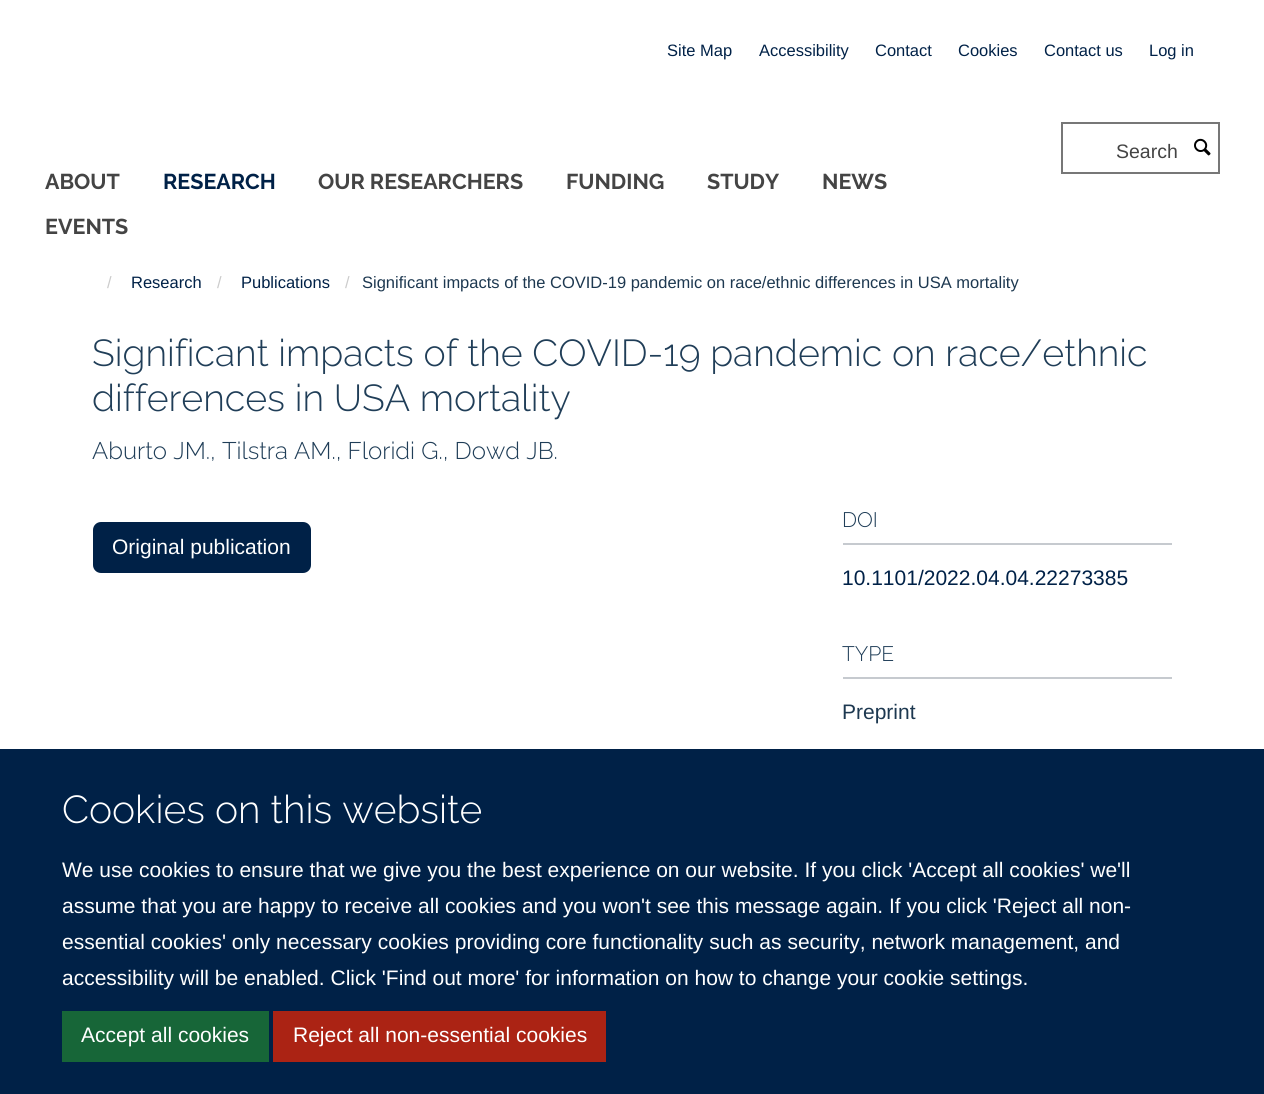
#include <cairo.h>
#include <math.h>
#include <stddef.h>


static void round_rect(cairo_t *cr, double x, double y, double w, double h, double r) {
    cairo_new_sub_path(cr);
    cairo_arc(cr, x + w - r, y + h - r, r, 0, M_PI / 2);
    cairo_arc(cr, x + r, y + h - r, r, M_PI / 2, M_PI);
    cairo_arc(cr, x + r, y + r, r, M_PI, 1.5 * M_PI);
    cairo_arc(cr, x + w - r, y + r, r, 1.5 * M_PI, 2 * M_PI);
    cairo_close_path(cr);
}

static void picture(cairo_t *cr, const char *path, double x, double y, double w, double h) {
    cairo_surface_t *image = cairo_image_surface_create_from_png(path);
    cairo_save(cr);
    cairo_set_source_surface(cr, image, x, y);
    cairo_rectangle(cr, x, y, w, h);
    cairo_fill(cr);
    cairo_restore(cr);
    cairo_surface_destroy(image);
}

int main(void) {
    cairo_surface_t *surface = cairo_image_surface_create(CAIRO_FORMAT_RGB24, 1264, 1094);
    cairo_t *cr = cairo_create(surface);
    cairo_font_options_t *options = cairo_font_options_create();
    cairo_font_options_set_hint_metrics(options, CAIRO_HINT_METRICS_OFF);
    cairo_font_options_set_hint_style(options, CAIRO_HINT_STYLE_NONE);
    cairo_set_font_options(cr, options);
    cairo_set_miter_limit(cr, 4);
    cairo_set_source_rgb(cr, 1, 1, 1);
    cairo_paint(cr);
    cairo_select_font_face(cr, "Liberation Sans", CAIRO_FONT_SLANT_NORMAL, CAIRO_FONT_WEIGHT_NORMAL);
    cairo_set_font_size(cr, 16.5);
    cairo_set_source_rgb(cr, 0, 0.129, 0.278);
    cairo_move_to(cr, 667, 56);
    cairo_show_text(cr, "Site Map");
    cairo_move_to(cr, 759, 56);
    cairo_show_text(cr, "Accessibility");
    cairo_move_to(cr, 875, 56);
    cairo_show_text(cr, "Contact");
    cairo_move_to(cr, 958, 56);
    cairo_show_text(cr, "Cookies");
    cairo_move_to(cr, 1044, 56);
    cairo_show_text(cr, "Contact us");
    cairo_move_to(cr, 1149, 56);
    cairo_show_text(cr, "Log in");
    cairo_rectangle(cr, 1062, 123, 157, 50);
    cairo_set_source_rgb(cr, 0.467, 0.467, 0.467);
    cairo_stroke(cr);
    cairo_set_font_size(cr, 19.5);
    cairo_set_source_rgb(cr, 0.267, 0.267, 0.267);
    cairo_move_to(cr, 1116, 158);
    cairo_show_text(cr, "Search");
    picture(cr, "img1.png", 1194, 138, 17, 18);
    cairo_select_font_face(cr, "Raleway", CAIRO_FONT_SLANT_NORMAL, CAIRO_FONT_WEIGHT_BOLD);
    cairo_set_font_size(cr, 21.5);
    cairo_move_to(cr, 45, 189);
    cairo_show_text(cr, "ABOUT");
    cairo_set_source_rgb(cr, 0, 0.129, 0.278);
    cairo_move_to(cr, 163, 189);
    cairo_show_text(cr, "RESEARCH");
    cairo_set_source_rgb(cr, 0.267, 0.267, 0.267);
    cairo_move_to(cr, 318, 189);
    cairo_show_text(cr, "OUR RESEARCHERS");
    cairo_move_to(cr, 566, 189);
    cairo_show_text(cr, "FUNDING");
    cairo_move_to(cr, 707, 189);
    cairo_show_text(cr, "STUDY");
    cairo_move_to(cr, 822, 189);
    cairo_show_text(cr, "NEWS");
    cairo_move_to(cr, 45, 234);
    cairo_show_text(cr, "EVENTS");
    cairo_select_font_face(cr, "Liberation Sans", CAIRO_FONT_SLANT_NORMAL, CAIRO_FONT_WEIGHT_NORMAL);
    cairo_set_font_size(cr, 16.5);
    cairo_set_source_rgb(cr, 0.8, 0.8, 0.8);
    cairo_move_to(cr, 107, 288);
    cairo_show_text(cr, "/");
    cairo_set_source_rgb(cr, 0, 0.129, 0.278);
    cairo_move_to(cr, 131, 288);
    cairo_show_text(cr, "Research");
    cairo_set_source_rgb(cr, 0.8, 0.8, 0.8);
    cairo_move_to(cr, 217, 288);
    cairo_show_text(cr, "/");
    cairo_set_source_rgb(cr, 0, 0.129, 0.278);
    cairo_move_to(cr, 241, 288);
    cairo_show_text(cr, "Publications");
    cairo_set_source_rgb(cr, 0.8, 0.8, 0.8);
    cairo_move_to(cr, 345, 288);
    cairo_show_text(cr, "/");
    cairo_set_source_rgb(cr, 0.114, 0.22, 0.314);
    cairo_move_to(cr, 362, 288);
    cairo_show_text(cr, "Significant impacts of the COVID-19 pandemic on race/ethnic differences in USA mortality");
    cairo_select_font_face(cr, "Raleway Light", CAIRO_FONT_SLANT_NORMAL, CAIRO_FONT_WEIGHT_NORMAL);
    cairo_set_font_size(cr, 37.5);
    cairo_set_source_rgb(cr, 0.125, 0.243, 0.345);
    cairo_move_to(cr, 92, 366);
    cairo_show_text(cr, "Significant impacts of the COVID-19 pandemic on race/ethnic");
    cairo_move_to(cr, 92, 411);
    cairo_show_text(cr, "differences in USA mortality");
    cairo_set_font_size(cr, 24);
    cairo_move_to(cr, 92, 459);
    cairo_show_text(cr, "Aburto JM., Tilstra AM., Floridi G., Dowd JB.");
    cairo_set_source_rgb(cr, 0, 0.129, 0.278);
    round_rect(cr, 94, 523, 216, 49, 7);
    cairo_fill_preserve(cr);
    cairo_stroke(cr);
    cairo_select_font_face(cr, "Liberation Sans", CAIRO_FONT_SLANT_NORMAL, CAIRO_FONT_WEIGHT_NORMAL);
    cairo_set_font_size(cr, 21);
    cairo_set_source_rgb(cr, 1, 1, 1);
    cairo_move_to(cr, 112, 554);
    cairo_show_text(cr, "Original publication");
    cairo_set_source_rgb(cr, 0.776, 0.792, 0.812);
    cairo_rectangle(cr, 843, 543, 329, 2);
    cairo_fill(cr);
    cairo_select_font_face(cr, "Raleway Light", CAIRO_FONT_SLANT_NORMAL, CAIRO_FONT_WEIGHT_NORMAL);
    cairo_set_source_rgb(cr, 0.125, 0.243, 0.345);
    cairo_move_to(cr, 842, 527);
    cairo_show_text(cr, "DOI");
    cairo_select_font_face(cr, "Liberation Sans", CAIRO_FONT_SLANT_NORMAL, CAIRO_FONT_WEIGHT_NORMAL);
    cairo_set_source_rgb(cr, 0, 0.129, 0.278);
    cairo_move_to(cr, 842, 585);
    cairo_show_text(cr, "10.1101/2022.04.04.22273385");
    cairo_set_source_rgb(cr, 0.776, 0.792, 0.812);
    cairo_rectangle(cr, 843, 677, 329, 2);
    cairo_fill(cr);
    cairo_select_font_face(cr, "Raleway Light", CAIRO_FONT_SLANT_NORMAL, CAIRO_FONT_WEIGHT_NORMAL);
    cairo_set_source_rgb(cr, 0.125, 0.243, 0.345);
    cairo_move_to(cr, 842, 661);
    cairo_show_text(cr, "TYPE");
    cairo_select_font_face(cr, "Liberation Sans", CAIRO_FONT_SLANT_NORMAL, CAIRO_FONT_WEIGHT_NORMAL);
    cairo_set_source_rgb(cr, 0.114, 0.22, 0.314);
    cairo_move_to(cr, 842, 719);
    cairo_show_text(cr, "Preprint");
    cairo_set_source_rgb(cr, 0, 0.129, 0.278);
    cairo_rectangle(cr, 0, 749, 1264, 345);
    cairo_fill(cr);
    cairo_select_font_face(cr, "Raleway Light", CAIRO_FONT_SLANT_NORMAL, CAIRO_FONT_WEIGHT_NORMAL);
    cairo_set_font_size(cr, 39);
    cairo_set_source_rgb(cr, 1, 1, 1);
    cairo_move_to(cr, 62, 823);
    cairo_show_text(cr, "Cookies on this website");
    cairo_select_font_face(cr, "Liberation Sans", CAIRO_FONT_SLANT_NORMAL, CAIRO_FONT_WEIGHT_NORMAL);
    cairo_set_font_size(cr, 21);
    cairo_move_to(cr, 62, 877);
    cairo_show_text(cr, "We use cookies to ensure that we give you the best experience on our website. If you click 'Accept all cookies' we'll");
    cairo_move_to(cr, 62, 913);
    cairo_show_text(cr, "assume that you are happy to receive all cookies and you won't see this message again. If you click 'Reject all non-");
    cairo_move_to(cr, 62, 949);
    cairo_show_text(cr, "essential cookies' only necessary cookies providing core functionality such as security, network management, and");
    cairo_move_to(cr, 62, 985);
    cairo_show_text(cr, "accessibility will be enabled. Click 'Find out more' for information on how to change your cookie settings.");
    cairo_set_source_rgb(cr, 0.09, 0.4, 0.22);
    cairo_rectangle(cr, 62, 1011, 207, 51);
    cairo_fill(cr);
    cairo_set_source_rgb(cr, 1, 1, 1);
    cairo_move_to(cr, 81, 1042);
    cairo_show_text(cr, "Accept all cookies");
    cairo_set_source_rgb(cr, 0.671, 0.137, 0.082);
    cairo_rectangle(cr, 273, 1011, 333, 51);
    cairo_fill(cr);
    cairo_set_source_rgb(cr, 1, 1, 1);
    cairo_move_to(cr, 293, 1042);
    cairo_show_text(cr, "Reject all non-essential cookies");
    cairo_surface_write_to_png(surface, "page.png");
    cairo_font_options_destroy(options);
    cairo_destroy(cr);
    cairo_surface_destroy(surface);
    return 0;
}
